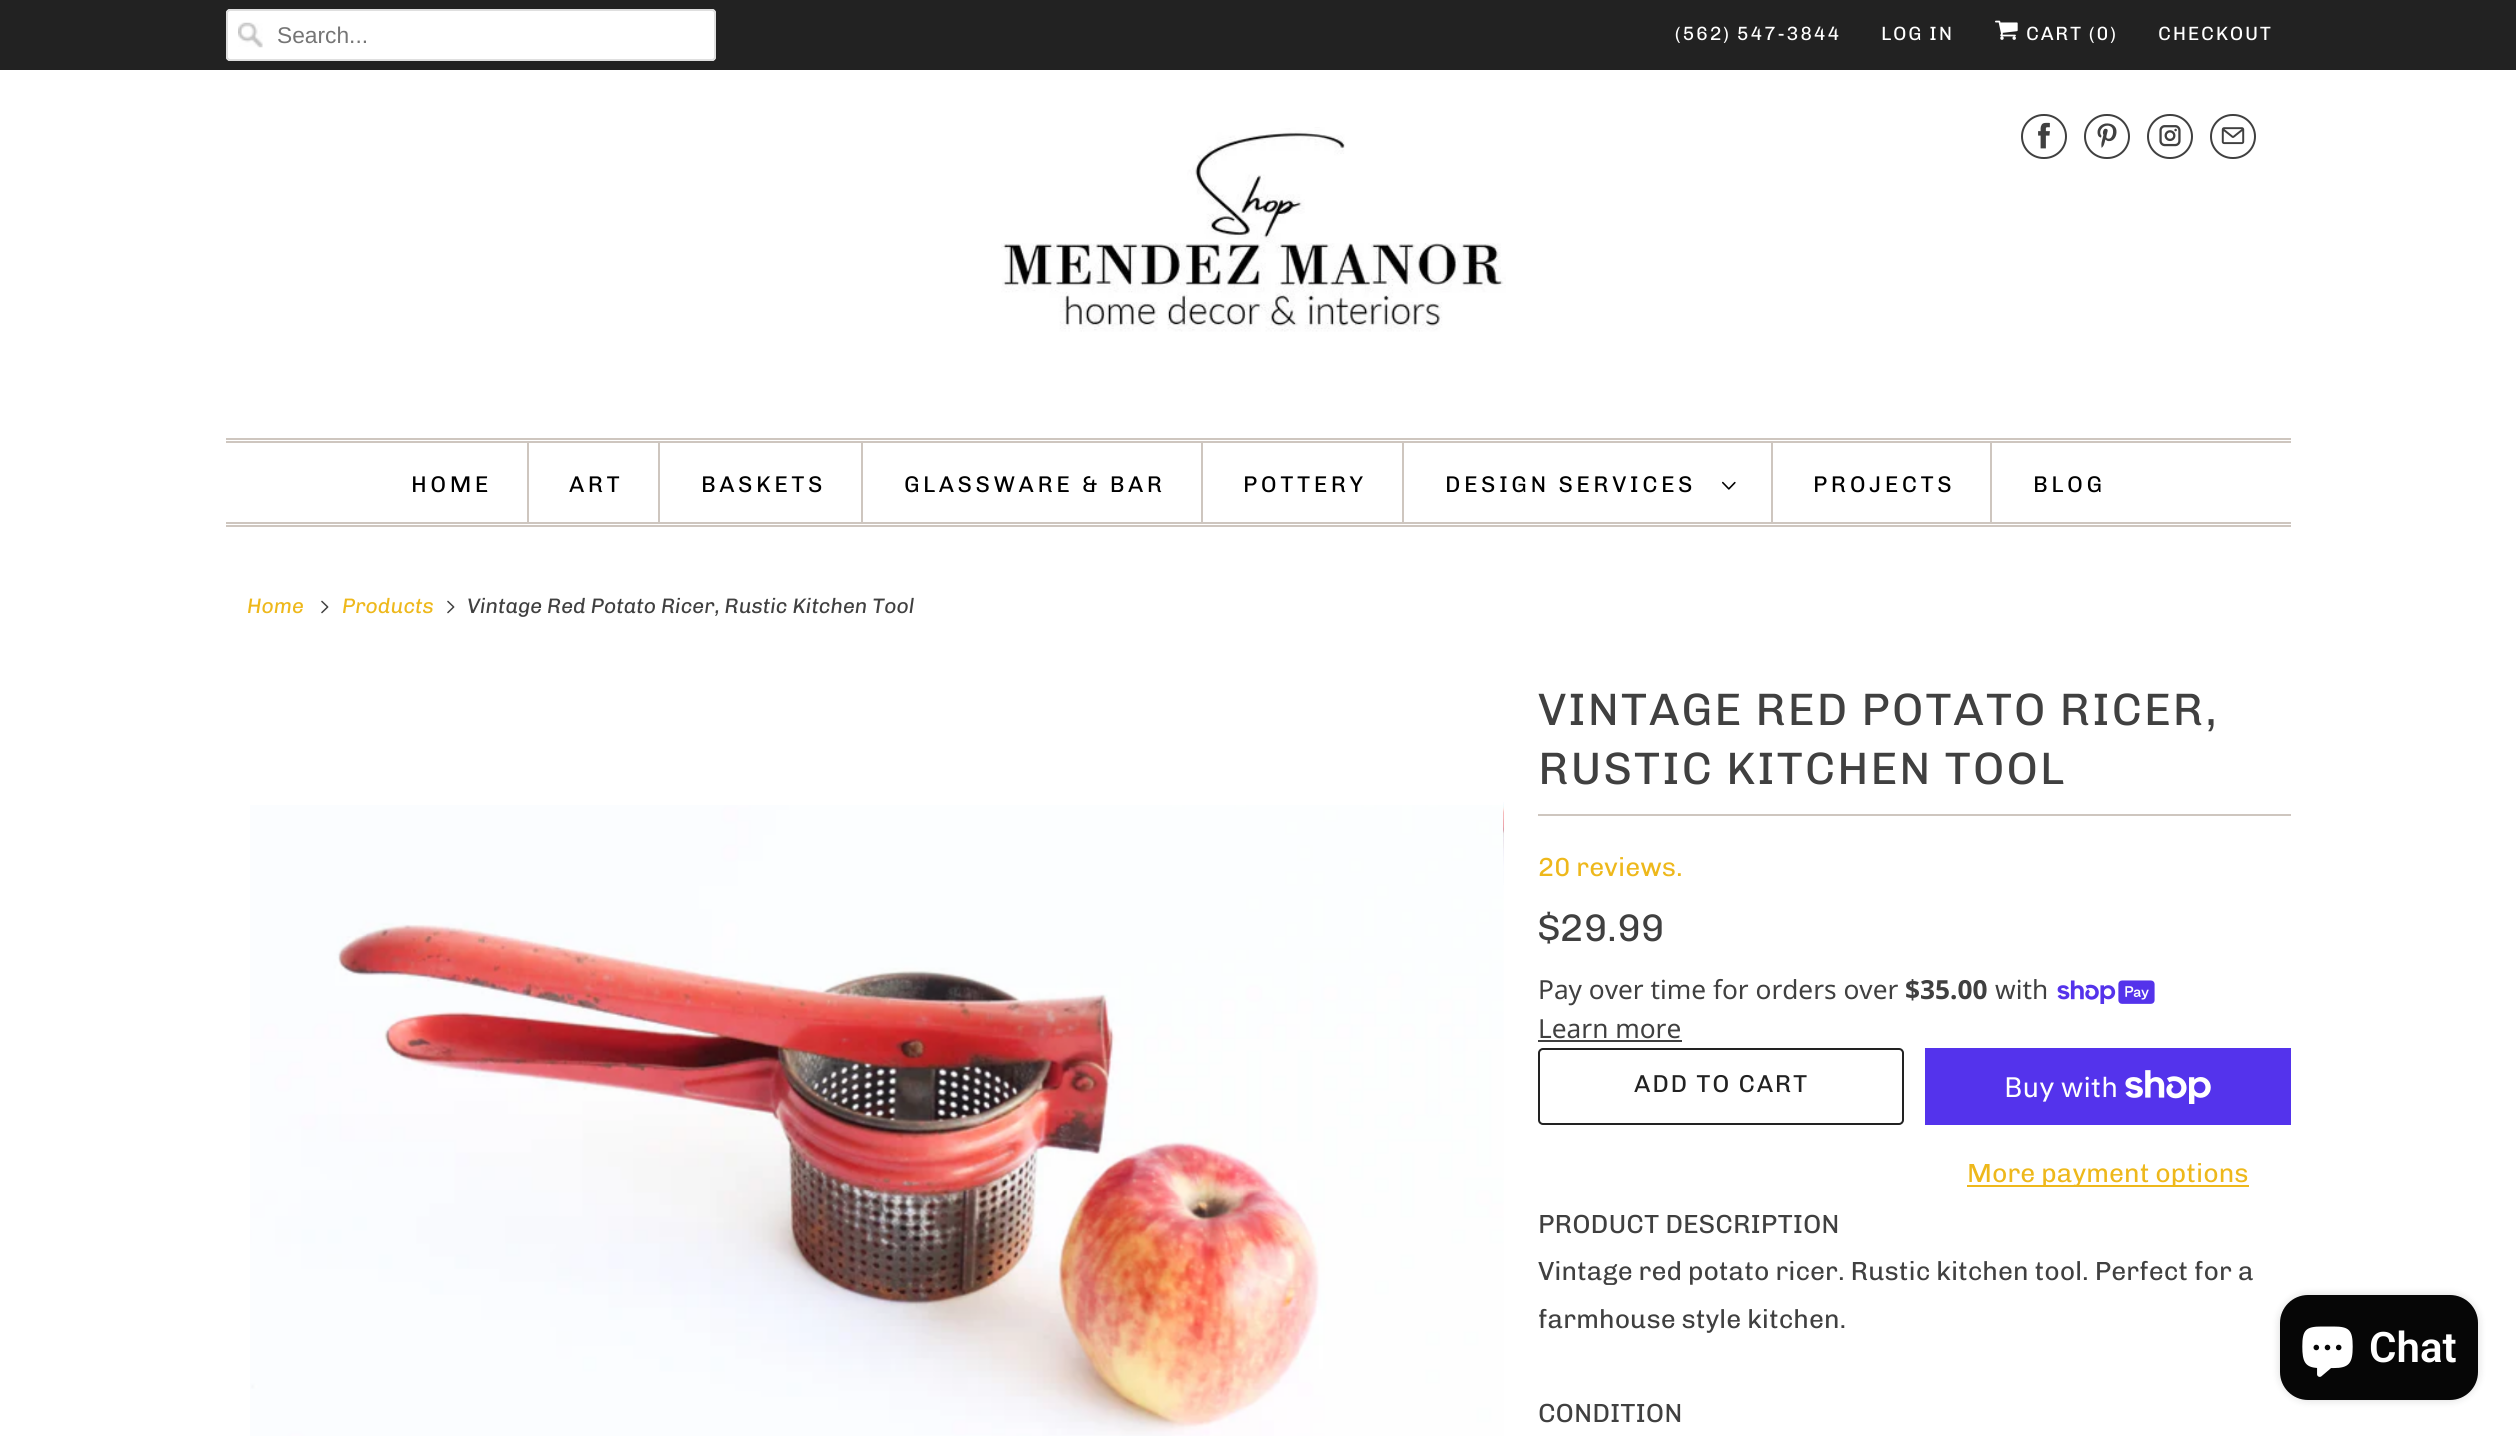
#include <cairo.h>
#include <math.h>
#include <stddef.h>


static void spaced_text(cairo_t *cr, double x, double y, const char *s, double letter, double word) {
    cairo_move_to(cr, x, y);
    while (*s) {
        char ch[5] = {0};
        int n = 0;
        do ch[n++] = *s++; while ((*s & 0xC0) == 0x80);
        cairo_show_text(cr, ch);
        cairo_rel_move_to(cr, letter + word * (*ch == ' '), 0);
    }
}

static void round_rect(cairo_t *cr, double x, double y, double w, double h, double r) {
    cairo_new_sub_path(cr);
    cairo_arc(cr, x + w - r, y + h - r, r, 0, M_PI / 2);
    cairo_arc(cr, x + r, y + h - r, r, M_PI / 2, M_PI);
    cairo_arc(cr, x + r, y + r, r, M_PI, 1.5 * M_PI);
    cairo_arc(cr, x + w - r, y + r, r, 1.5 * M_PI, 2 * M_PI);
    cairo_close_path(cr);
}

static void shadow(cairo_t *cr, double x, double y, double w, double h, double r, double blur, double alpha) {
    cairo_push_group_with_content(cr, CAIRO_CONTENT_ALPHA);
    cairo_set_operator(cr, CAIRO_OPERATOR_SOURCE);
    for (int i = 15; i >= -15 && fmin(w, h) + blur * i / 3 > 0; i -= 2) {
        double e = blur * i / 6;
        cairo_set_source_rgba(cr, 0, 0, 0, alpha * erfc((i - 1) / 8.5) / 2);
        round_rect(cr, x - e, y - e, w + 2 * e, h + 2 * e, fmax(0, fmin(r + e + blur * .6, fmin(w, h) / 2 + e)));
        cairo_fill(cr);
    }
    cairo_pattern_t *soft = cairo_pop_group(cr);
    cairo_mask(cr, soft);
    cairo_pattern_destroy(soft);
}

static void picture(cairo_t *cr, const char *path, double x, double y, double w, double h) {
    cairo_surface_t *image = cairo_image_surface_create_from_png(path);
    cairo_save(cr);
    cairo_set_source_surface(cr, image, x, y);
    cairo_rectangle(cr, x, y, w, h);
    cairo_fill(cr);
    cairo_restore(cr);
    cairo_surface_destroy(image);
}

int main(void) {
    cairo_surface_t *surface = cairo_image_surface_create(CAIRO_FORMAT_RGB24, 2516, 1436);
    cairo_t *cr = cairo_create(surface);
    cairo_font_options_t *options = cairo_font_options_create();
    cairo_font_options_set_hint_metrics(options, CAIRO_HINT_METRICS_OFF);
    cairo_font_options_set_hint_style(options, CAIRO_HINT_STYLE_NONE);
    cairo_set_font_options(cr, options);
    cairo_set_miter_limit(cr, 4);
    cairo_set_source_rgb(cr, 1, 1, 1);
    cairo_paint(cr);
    cairo_set_source_rgb(cr, 0.133, 0.133, 0.133);
    cairo_rectangle(cr, 0, 0, 2516, 70);
    cairo_fill(cr);
    cairo_set_source_rgb(cr, 1, 1, 1);
    round_rect(cr, 226, 9, 490, 52, 4);
    cairo_fill(cr);
    picture(cr, "img1.png", 238, 22, 25, 26);
    round_rect(cr, 227, 10, 488, 50, 3);
    cairo_set_source_rgb(cr, 0.875, 0.875, 0.875);
    cairo_stroke(cr);
    cairo_select_font_face(cr, "Liberation Sans", CAIRO_FONT_SLANT_NORMAL, CAIRO_FONT_WEIGHT_NORMAL);
    cairo_set_font_size(cr, 22.75);
    cairo_set_source_rgb(cr, 0.459, 0.459, 0.459);
    cairo_move_to(cr, 277, 43);
    cairo_show_text(cr, "Search...");
    cairo_select_font_face(cr, "Chivo", CAIRO_FONT_SLANT_NORMAL, CAIRO_FONT_WEIGHT_NORMAL);
    cairo_set_font_size(cr, 19.25);
    cairo_set_source_rgb(cr, 1, 1, 1);
    spaced_text(cr, 1675, 40, "(562) 547-3844", 1.75, 0);
    spaced_text(cr, 1881, 40, "LOG IN", 1.75, 0);
    picture(cr, "img2.png", 1995, 20, 23, 20);
    spaced_text(cr, 2026, 40, "CART (0)", 1.75, 0);
    spaced_text(cr, 2158, 40, "CHECKOUT", 1.75, 0);
    picture(cr, "img3.png", 1001, 127, 505, 205);
    round_rect(cr, 2022, 115, 44, 43, 21.5);
    cairo_set_source_rgb(cr, 0.251, 0.251, 0.251);
    cairo_stroke(cr);
    picture(cr, "img4.png", 2038, 122, 12, 27);
    round_rect(cr, 2085, 115, 44, 43, 21.5);
    cairo_stroke(cr);
    picture(cr, "img5.png", 2097, 123, 20, 25);
    round_rect(cr, 2148, 115, 44, 43, 21.5);
    cairo_stroke(cr);
    picture(cr, "img6.png", 2159, 125, 22, 22);
    round_rect(cr, 2211, 115, 44, 43, 21.5);
    cairo_stroke(cr);
    picture(cr, "img7.png", 2221, 127, 24, 18);
    cairo_set_source_rgb(cr, 0.808, 0.776, 0.749);
    cairo_rectangle(cr, 226, 438, 2065, 2);
    cairo_fill(cr);
    cairo_rectangle(cr, 226, 441, 2065, 2);
    cairo_fill(cr);
    cairo_rectangle(cr, 226, 522, 2065, 2);
    cairo_fill(cr);
    cairo_rectangle(cr, 226, 525, 2065, 2);
    cairo_fill(cr);
    cairo_rectangle(cr, 527, 443, 2, 79);
    cairo_fill(cr);
    cairo_set_font_size(cr, 22.75);
    cairo_set_source_rgb(cr, 0, 0, 0);
    spaced_text(cr, 411, 492, "HOME", 3.5, 0);
    cairo_set_source_rgb(cr, 0.808, 0.776, 0.749);
    cairo_rectangle(cr, 658, 443, 2, 79);
    cairo_fill(cr);
    cairo_set_source_rgb(cr, 0, 0, 0);
    spaced_text(cr, 569, 492, "ART", 3.5, 0);
    cairo_set_source_rgb(cr, 0.808, 0.776, 0.749);
    cairo_rectangle(cr, 861, 443, 2, 79);
    cairo_fill(cr);
    cairo_set_source_rgb(cr, 0, 0, 0);
    spaced_text(cr, 701, 492, "BASKETS", 3.5, 0);
    cairo_set_source_rgb(cr, 0.808, 0.776, 0.749);
    cairo_rectangle(cr, 1201, 443, 2, 79);
    cairo_fill(cr);
    cairo_set_source_rgb(cr, 0, 0, 0);
    spaced_text(cr, 904, 492, "GLASSWARE & BAR", 3.5, 0);
    cairo_set_source_rgb(cr, 0.808, 0.776, 0.749);
    cairo_rectangle(cr, 1402, 443, 2, 79);
    cairo_fill(cr);
    cairo_set_source_rgb(cr, 0, 0, 0);
    spaced_text(cr, 1243, 492, "POTTERY", 3.5, 0);
    cairo_set_source_rgb(cr, 0.808, 0.776, 0.749);
    cairo_rectangle(cr, 1771, 443, 2, 79);
    cairo_fill(cr);
    cairo_set_source_rgb(cr, 0, 0, 0);
    spaced_text(cr, 1445, 492, "DESIGN SERVICES", 3.5, 0);
    picture(cr, "img8.png", 1722, 481, 14, 9);
    cairo_set_source_rgb(cr, 0.808, 0.776, 0.749);
    cairo_rectangle(cr, 1990, 443, 2, 79);
    cairo_fill(cr);
    cairo_set_source_rgb(cr, 0, 0, 0);
    spaced_text(cr, 1813, 492, "PROJECTS", 3.5, 0);
    spaced_text(cr, 2033, 492, "BLOG", 3.5, 0);
    cairo_select_font_face(cr, "Chivo", CAIRO_FONT_SLANT_ITALIC, CAIRO_FONT_WEIGHT_NORMAL);
    cairo_set_font_size(cr, 21);
    cairo_set_source_rgb(cr, 0.933, 0.722, 0.106);
    cairo_move_to(cr, 247, 613);
    cairo_show_text(cr, "Home");
    picture(cr, "img9.png", 321, 600, 8, 14);
    cairo_move_to(cr, 342, 613);
    cairo_show_text(cr, "Products");
    picture(cr, "img9.png", 447, 600, 8, 14);
    cairo_set_source_rgb(cr, 0.251, 0.251, 0.251);
    cairo_move_to(cr, 467, 613);
    cairo_show_text(cr, "Vintage Red Potato Ricer, Rustic Kitchen Tool");
    picture(cr, "img10.png", 1503, 802, 1, 83);
    picture(cr, "img11.png", 250, 805, 1254, 631);
    cairo_set_source_rgb(cr, 0.808, 0.776, 0.749);
    cairo_rectangle(cr, 1538, 814, 753, 2);
    cairo_fill(cr);
    cairo_select_font_face(cr, "Chivo", CAIRO_FONT_SLANT_NORMAL, CAIRO_FONT_WEIGHT_NORMAL);
    cairo_set_font_size(cr, 45.5);
    cairo_set_source_rgb(cr, 0.251, 0.251, 0.251);
    spaced_text(cr, 1538, 725, "VINTAGE RED POTATO RICER,", 1.75, 0);
    spaced_text(cr, 1538, 784, "RUSTIC KITCHEN TOOL", 1.75, 0);
    cairo_set_font_size(cr, 26.25);
    cairo_set_source_rgb(cr, 0.933, 0.722, 0.106);
    cairo_move_to(cr, 1538, 876);
    cairo_show_text(cr, "20 reviews.");
    cairo_set_font_size(cr, 38.5);
    cairo_set_source_rgb(cr, 0.251, 0.251, 0.251);
    cairo_move_to(cr, 1538, 941);
    cairo_show_text(cr, "$29.99");
    cairo_select_font_face(cr, "Noto Sans", CAIRO_FONT_SLANT_NORMAL, CAIRO_FONT_WEIGHT_NORMAL);
    cairo_set_font_size(cr, 26.25);
    cairo_move_to(cr, 1538, 999);
    cairo_show_text(cr, "Pay over time for orders over");
    cairo_select_font_face(cr, "Noto Sans", CAIRO_FONT_SLANT_NORMAL, CAIRO_FONT_WEIGHT_BOLD);
    cairo_move_to(cr, 1905, 999);
    cairo_show_text(cr, "$35.00");
    cairo_select_font_face(cr, "Noto Sans", CAIRO_FONT_SLANT_NORMAL, CAIRO_FONT_WEIGHT_NORMAL);
    cairo_move_to(cr, 1995, 999);
    cairo_show_text(cr, "with");
    picture(cr, "img12.png", 2057, 980, 98, 24);
    cairo_move_to(cr, 1538, 1038);
    cairo_show_text(cr, "Learn more");
    cairo_rectangle(cr, 1538, 1040, 144, 2);
    cairo_fill(cr);
    round_rect(cr, 1539, 1049, 364, 75, 4);
    cairo_set_source_rgb(cr, 0.133, 0.133, 0.133);
    cairo_stroke(cr);
    cairo_select_font_face(cr, "Chivo", CAIRO_FONT_SLANT_NORMAL, CAIRO_FONT_WEIGHT_NORMAL);
    cairo_set_font_size(cr, 24.5);
    spaced_text(cr, 1634, 1092, "ADD TO CART", 1.75, 0);
    cairo_set_source_rgb(cr, 0.329, 0.2, 0.922);
    cairo_rectangle(cr, 1925, 1048, 366, 77);
    cairo_fill(cr);
    cairo_select_font_face(cr, "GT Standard", CAIRO_FONT_SLANT_NORMAL, CAIRO_FONT_WEIGHT_NORMAL);
    cairo_set_font_size(cr, 28);
    cairo_set_source_rgb(cr, 1, 1, 1);
    cairo_move_to(cr, 2004, 1097);
    cairo_show_text(cr, "Buy with");
    picture(cr, "img13.png", 2125, 1070, 86, 34);
    cairo_set_source_rgb(cr, 0.933, 0.722, 0.106);
    cairo_rectangle(cr, 1967, 1185, 282, 2);
    cairo_fill(cr);
    cairo_select_font_face(cr, "Chivo", CAIRO_FONT_SLANT_NORMAL, CAIRO_FONT_WEIGHT_NORMAL);
    cairo_set_font_size(cr, 26.25);
    cairo_move_to(cr, 1967, 1182);
    cairo_show_text(cr, "More payment options");
    cairo_set_source_rgb(cr, 0.251, 0.251, 0.251);
    cairo_move_to(cr, 1538, 1233);
    cairo_show_text(cr, "PRODUCT DESCRIPTION");
    cairo_move_to(cr, 1538, 1280);
    cairo_show_text(cr, "Vintage red potato ricer. Rustic kitchen tool. Perfect for a");
    cairo_move_to(cr, 1538, 1328);
    cairo_show_text(cr, "farmhouse style kitchen.");
    cairo_move_to(cr, 1538, 1422);
    cairo_show_text(cr, "CONDITION");
    cairo_set_source_rgb(cr, 0, 0, 0);
    shadow(cr, 2280, 1295, 198, 105, 28, 4.5, 0.15);
    cairo_set_source_rgb(cr, 0.024, 0.024, 0.024);
    round_rect(cr, 2280, 1295, 198, 105, 28);
    cairo_fill(cr);
    picture(cr, "img14.png", 2302, 1326, 51, 51);
    cairo_select_font_face(cr, "Roboto SemiBold", CAIRO_FONT_SLANT_NORMAL, CAIRO_FONT_WEIGHT_NORMAL);
    cairo_set_font_size(cr, 42);
    cairo_set_source_rgb(cr, 1, 1, 1);
    cairo_move_to(cr, 2369, 1362);
    cairo_show_text(cr, "Chat");
    cairo_surface_write_to_png(surface, "page.png");
    cairo_font_options_destroy(options);
    cairo_destroy(cr);
    cairo_surface_destroy(surface);
    return 0;
}
